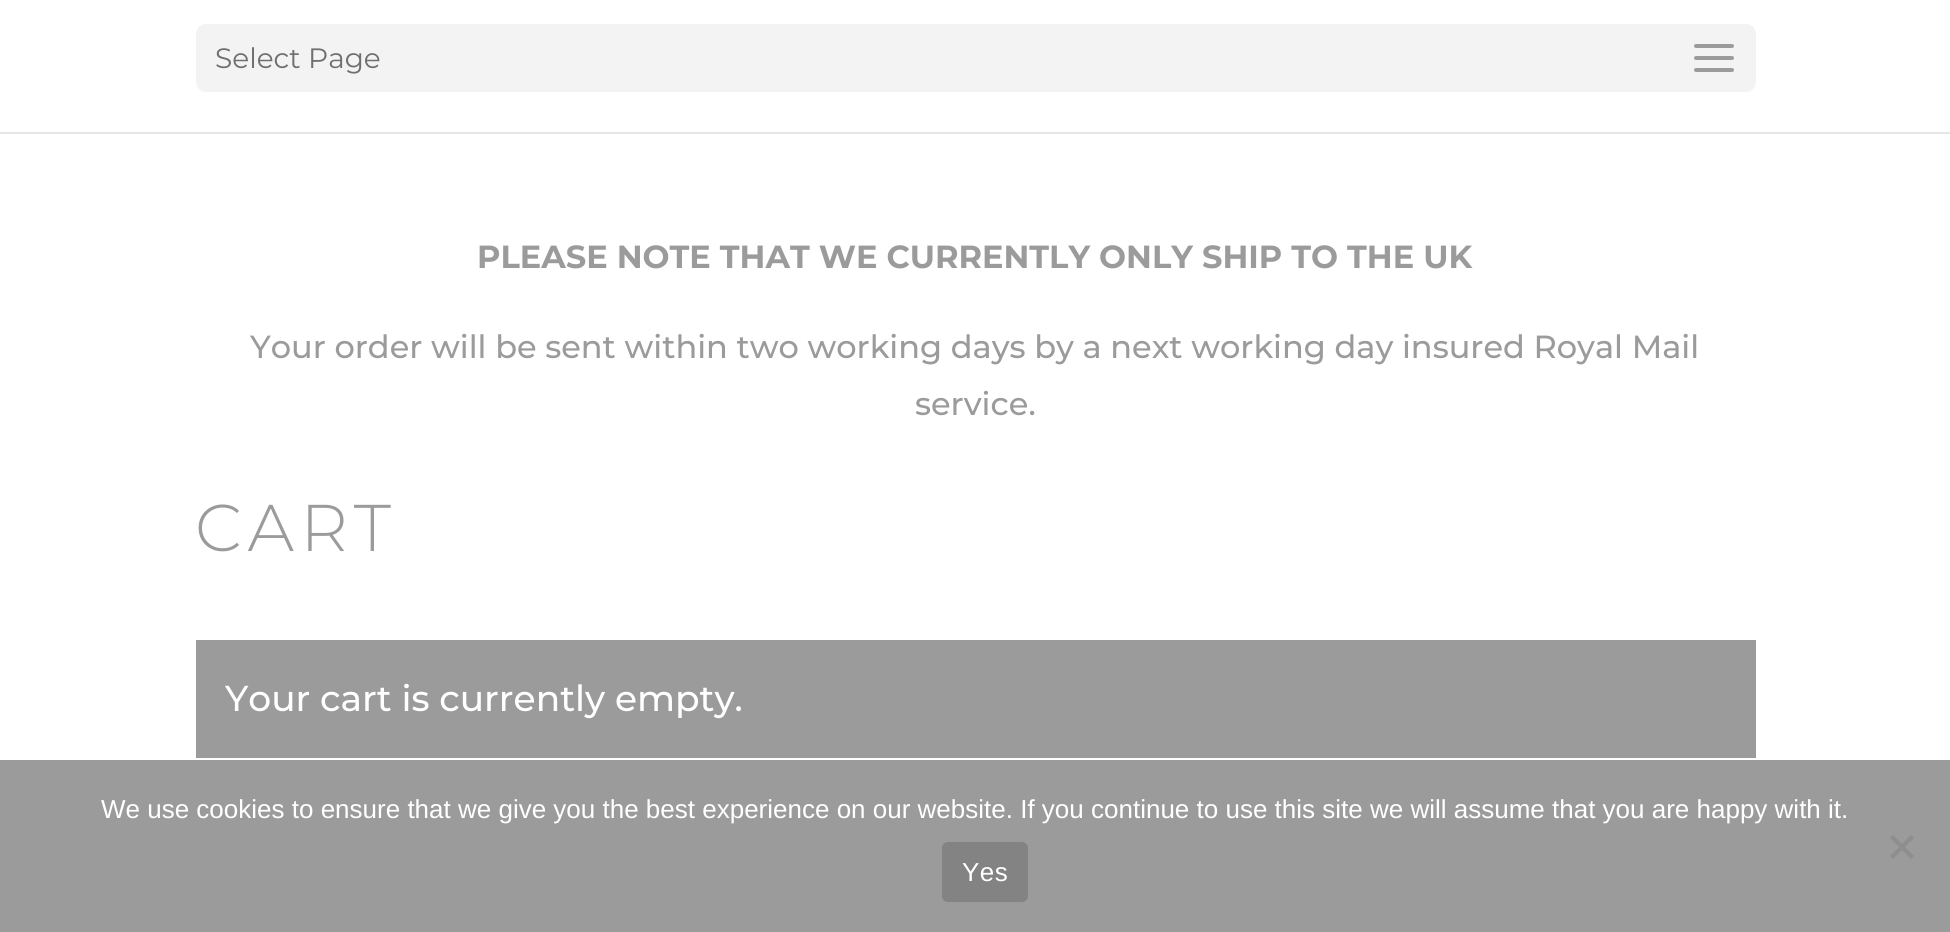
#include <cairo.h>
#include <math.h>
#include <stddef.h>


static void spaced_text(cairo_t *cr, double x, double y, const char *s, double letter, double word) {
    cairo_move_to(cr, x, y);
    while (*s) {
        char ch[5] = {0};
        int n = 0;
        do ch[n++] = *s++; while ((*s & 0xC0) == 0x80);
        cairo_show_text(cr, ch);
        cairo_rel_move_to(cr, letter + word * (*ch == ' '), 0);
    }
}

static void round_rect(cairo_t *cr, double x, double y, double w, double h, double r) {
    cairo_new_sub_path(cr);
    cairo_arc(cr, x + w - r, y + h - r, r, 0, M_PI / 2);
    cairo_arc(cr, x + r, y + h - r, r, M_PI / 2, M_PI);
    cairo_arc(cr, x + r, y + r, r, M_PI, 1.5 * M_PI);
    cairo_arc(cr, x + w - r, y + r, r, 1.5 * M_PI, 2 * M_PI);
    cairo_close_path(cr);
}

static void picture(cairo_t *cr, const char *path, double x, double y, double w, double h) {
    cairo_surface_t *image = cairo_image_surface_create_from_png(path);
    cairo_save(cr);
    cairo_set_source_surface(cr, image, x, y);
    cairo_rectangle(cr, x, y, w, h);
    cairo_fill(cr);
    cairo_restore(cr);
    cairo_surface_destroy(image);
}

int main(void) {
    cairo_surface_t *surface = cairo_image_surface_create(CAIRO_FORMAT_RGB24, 1950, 932);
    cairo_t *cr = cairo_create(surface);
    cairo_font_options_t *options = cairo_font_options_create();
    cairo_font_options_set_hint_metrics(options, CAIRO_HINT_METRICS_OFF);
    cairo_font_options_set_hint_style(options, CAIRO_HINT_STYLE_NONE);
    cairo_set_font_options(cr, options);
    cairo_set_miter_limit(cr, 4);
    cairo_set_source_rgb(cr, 1, 1, 1);
    cairo_paint(cr);
    cairo_set_source_rgb(cr, 0.902, 0.902, 0.902);
    cairo_rectangle(cr, 0, 132, 1950, 2);
    cairo_fill(cr);
    cairo_set_source_rgb(cr, 0.953, 0.953, 0.953);
    round_rect(cr, 196, 24, 1560, 68, 10);
    cairo_fill(cr);
    cairo_select_font_face(cr, "Montserrat", CAIRO_FONT_SLANT_NORMAL, CAIRO_FONT_WEIGHT_NORMAL);
    cairo_set_font_size(cr, 28);
    cairo_set_source_rgb(cr, 0.439, 0.435, 0.435);
    cairo_move_to(cr, 215, 68);
    cairo_show_text(cr, "Select Page");
    picture(cr, "img1.png", 1694, 44, 40, 28);
    cairo_select_font_face(cr, "Montserrat", CAIRO_FONT_SLANT_NORMAL, CAIRO_FONT_WEIGHT_BOLD);
    cairo_set_font_size(cr, 32);
    cairo_set_source_rgb(cr, 0.612, 0.608, 0.608);
    cairo_move_to(cr, 477, 268);
    cairo_show_text(cr, "PLEASE NOTE THAT WE CURRENTLY ONLY SHIP TO THE UK");
    cairo_select_font_face(cr, "Montserrat Medium", CAIRO_FONT_SLANT_NORMAL, CAIRO_FONT_WEIGHT_NORMAL);
    cairo_move_to(cr, 250, 358);
    cairo_show_text(cr, "Your order will be sent within two working days by a next working day insured Royal Mail");
    cairo_move_to(cr, 915, 415);
    cairo_show_text(cr, "service.");
    cairo_select_font_face(cr, "Montserrat Light", CAIRO_FONT_SLANT_NORMAL, CAIRO_FONT_WEIGHT_NORMAL);
    cairo_set_font_size(cr, 66);
    spaced_text(cr, 195, 551, "CART", 6, 0);
    cairo_rectangle(cr, 196, 640, 1560, 118);
    cairo_fill(cr);
    cairo_select_font_face(cr, "Montserrat Medium", CAIRO_FONT_SLANT_NORMAL, CAIRO_FONT_WEIGHT_NORMAL);
    cairo_set_font_size(cr, 36);
    cairo_set_source_rgb(cr, 1, 1, 1);
    cairo_move_to(cr, 225, 711);
    cairo_show_text(cr, "Your cart is currently empty.");
    cairo_set_source_rgb(cr, 0.612, 0.608, 0.608);
    cairo_rectangle(cr, 0, 760, 1950, 172);
    cairo_fill(cr);
    cairo_select_font_face(cr, "Liberation Sans", CAIRO_FONT_SLANT_NORMAL, CAIRO_FONT_WEIGHT_NORMAL);
    cairo_set_font_size(cr, 26);
    cairo_set_source_rgb(cr, 1, 1, 1);
    cairo_move_to(cr, 101, 818);
    cairo_show_text(cr, "We use cookies to ensure that we give you the best experience on our website. If you continue to use this site we will assume that you are happy with it.");
    cairo_set_source_rgb(cr, 0.557, 0.557, 0.557);
    cairo_new_path(cr);
    cairo_move_to(cr, 1911, 835);
    cairo_line_to(cr, 1914, 838);
    cairo_line_to(cr, 1893, 859);
    cairo_line_to(cr, 1890, 856);
    cairo_close_path(cr);
    cairo_fill(cr);
    cairo_new_path(cr);
    cairo_move_to(cr, 1890, 838);
    cairo_line_to(cr, 1893, 835);
    cairo_line_to(cr, 1914, 856);
    cairo_line_to(cr, 1911, 859);
    cairo_close_path(cr);
    cairo_fill(cr);
    cairo_set_source_rgb(cr, 0.518, 0.514, 0.514);
    round_rect(cr, 942, 842, 86, 60, 6);
    cairo_fill(cr);
    cairo_set_source_rgb(cr, 1, 1, 1);
    spaced_text(cr, 962, 881, "Yes", 0.5, 0);
    cairo_surface_write_to_png(surface, "page.png");
    cairo_font_options_destroy(options);
    cairo_destroy(cr);
    cairo_surface_destroy(surface);
    return 0;
}
